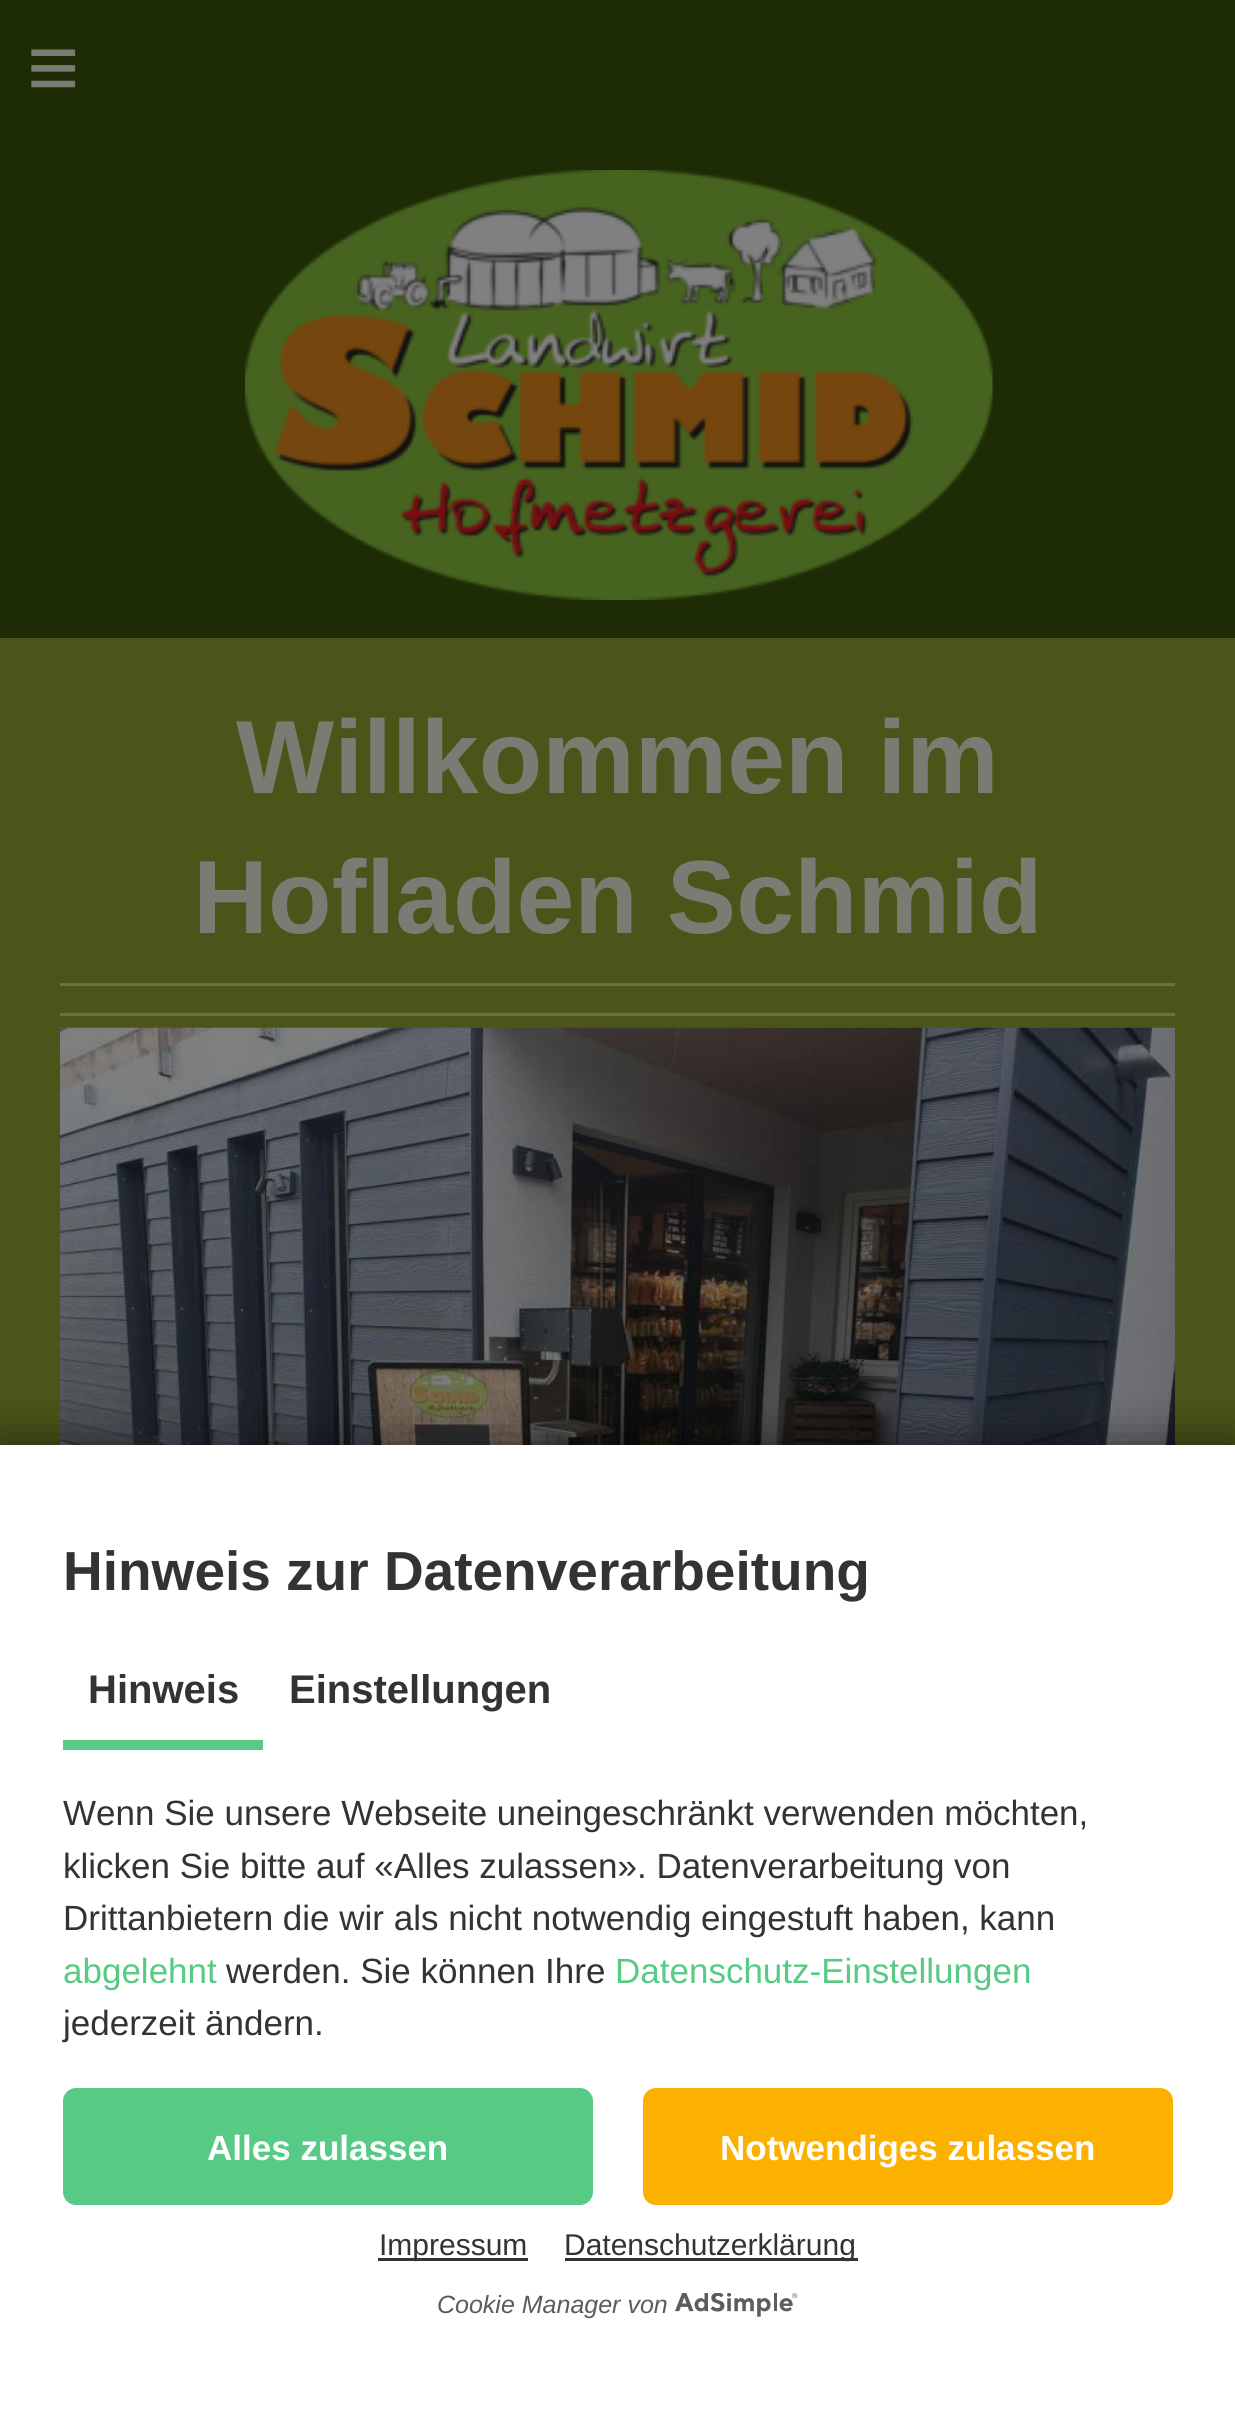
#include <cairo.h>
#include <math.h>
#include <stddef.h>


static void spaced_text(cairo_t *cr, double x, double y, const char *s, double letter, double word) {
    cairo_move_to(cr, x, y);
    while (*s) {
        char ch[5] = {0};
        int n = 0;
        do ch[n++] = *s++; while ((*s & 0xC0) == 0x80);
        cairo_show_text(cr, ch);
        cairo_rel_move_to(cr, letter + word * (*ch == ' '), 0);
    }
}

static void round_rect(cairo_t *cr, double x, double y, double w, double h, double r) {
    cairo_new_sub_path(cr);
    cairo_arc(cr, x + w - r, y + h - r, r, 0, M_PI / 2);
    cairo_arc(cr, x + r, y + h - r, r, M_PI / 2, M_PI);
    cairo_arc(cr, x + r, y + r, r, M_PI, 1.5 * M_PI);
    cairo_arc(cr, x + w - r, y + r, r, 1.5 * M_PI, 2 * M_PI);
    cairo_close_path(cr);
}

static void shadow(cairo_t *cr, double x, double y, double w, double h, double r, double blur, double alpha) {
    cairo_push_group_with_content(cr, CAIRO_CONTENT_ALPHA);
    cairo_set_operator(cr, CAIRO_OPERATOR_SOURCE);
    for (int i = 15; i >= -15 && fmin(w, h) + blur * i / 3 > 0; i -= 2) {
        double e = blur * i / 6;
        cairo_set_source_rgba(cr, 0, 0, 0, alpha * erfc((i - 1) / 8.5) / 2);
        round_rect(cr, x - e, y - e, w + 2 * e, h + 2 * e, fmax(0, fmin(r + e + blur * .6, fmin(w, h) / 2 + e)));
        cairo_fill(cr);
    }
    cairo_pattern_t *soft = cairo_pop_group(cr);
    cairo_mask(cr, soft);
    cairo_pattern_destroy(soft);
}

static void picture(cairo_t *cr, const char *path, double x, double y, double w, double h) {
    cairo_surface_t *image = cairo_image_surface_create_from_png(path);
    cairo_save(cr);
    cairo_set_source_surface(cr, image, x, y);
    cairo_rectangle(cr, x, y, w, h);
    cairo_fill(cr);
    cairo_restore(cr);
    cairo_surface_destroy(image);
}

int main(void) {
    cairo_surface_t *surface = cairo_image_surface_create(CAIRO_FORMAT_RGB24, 1235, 2422);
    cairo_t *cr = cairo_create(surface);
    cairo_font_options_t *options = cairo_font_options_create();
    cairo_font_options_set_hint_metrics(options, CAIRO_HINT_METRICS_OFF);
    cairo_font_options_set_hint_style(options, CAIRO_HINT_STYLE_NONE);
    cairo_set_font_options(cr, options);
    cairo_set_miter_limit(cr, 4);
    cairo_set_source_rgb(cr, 0.114, 0.173, 0.02);
    cairo_paint(cr);
    cairo_select_font_face(cr, "Liberation Sans", CAIRO_FONT_SLANT_NORMAL, CAIRO_FONT_WEIGHT_NORMAL);
    cairo_set_font_size(cr, 90);
    cairo_set_source_rgb(cr, 0.478, 0.486, 0.451);
    spaced_text(cr, 27, 98, "≡", 26, 0);
    picture(cr, "img1.png", 245, 170, 748, 430);
    cairo_set_source_rgb(cr, 0.298, 0.333, 0.098);
    cairo_rectangle(cr, 0, 638, 1235, 807);
    cairo_fill(cr);
    cairo_select_font_face(cr, "Liberation Sans", CAIRO_FONT_SLANT_NORMAL, CAIRO_FONT_WEIGHT_BOLD);
    cairo_set_font_size(cr, 104);
    cairo_set_source_rgb(cr, 0.478, 0.486, 0.451);
    cairo_move_to(cr, 236, 793);
    cairo_show_text(cr, "Willkommen im");
    cairo_move_to(cr, 193, 933);
    cairo_show_text(cr, "Hofladen Schmid");
    cairo_set_source_rgb(cr, 0.416, 0.439, 0.294);
    cairo_rectangle(cr, 60, 983, 1115, 3);
    cairo_fill(cr);
    cairo_rectangle(cr, 60, 1013, 1115, 3);
    cairo_fill(cr);
    picture(cr, "img2.png", 60, 1027, 1115, 418);
    cairo_set_source_rgb(cr, 0, 0, 0);
    shadow(cr, 0, 1445, 1235, 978, 0, 25, 0.6);
    cairo_set_source_rgb(cr, 1, 1, 1);
    cairo_rectangle(cr, 0, 1445, 1235, 977);
    cairo_fill(cr);
    cairo_set_font_size(cr, 55);
    cairo_set_source_rgb(cr, 0.2, 0.2, 0.2);
    cairo_move_to(cr, 63, 1590);
    cairo_show_text(cr, "Hinweis zur Datenverarbeitung");
    cairo_set_source_rgb(cr, 0.341, 0.792, 0.522);
    cairo_rectangle(cr, 63, 1740, 200, 10);
    cairo_fill(cr);
    cairo_set_font_size(cr, 40);
    cairo_set_source_rgb(cr, 0.2, 0.2, 0.2);
    cairo_move_to(cr, 88, 1703);
    cairo_show_text(cr, "Hinweis");
    cairo_move_to(cr, 289, 1703);
    cairo_show_text(cr, "Einstellungen");
    cairo_select_font_face(cr, "Liberation Sans", CAIRO_FONT_SLANT_NORMAL, CAIRO_FONT_WEIGHT_NORMAL);
    cairo_set_font_size(cr, 35);
    cairo_move_to(cr, 63, 1825);
    cairo_show_text(cr, "Wenn Sie unsere Webseite uneingeschränkt verwenden möchten,");
    cairo_move_to(cr, 63, 1878);
    cairo_show_text(cr, "klicken Sie bitte auf «Alles zulassen». Datenverarbeitung von");
    cairo_move_to(cr, 63, 1930);
    cairo_show_text(cr, "Drittanbietern die wir als nicht notwendig eingestuft haben, kann");
    cairo_set_source_rgb(cr, 0.341, 0.792, 0.522);
    cairo_move_to(cr, 63, 1983);
    cairo_show_text(cr, "abgelehnt");
    cairo_set_source_rgb(cr, 0.2, 0.2, 0.2);
    cairo_move_to(cr, 226, 1983);
    cairo_show_text(cr, "werden. Sie können Ihre");
    cairo_set_source_rgb(cr, 0.341, 0.792, 0.522);
    cairo_move_to(cr, 615, 1983);
    cairo_show_text(cr, "Datenschutz-Einstellungen");
    cairo_set_source_rgb(cr, 0.2, 0.2, 0.2);
    cairo_move_to(cr, 63, 2035);
    cairo_show_text(cr, "jederzeit ändern.");
    cairo_set_source_rgb(cr, 0.341, 0.792, 0.522);
    round_rect(cr, 65.5, 2090.5, 525, 112, 10.5);
    cairo_fill_preserve(cr);
    cairo_set_line_width(cr, 5);
    cairo_stroke(cr);
    cairo_select_font_face(cr, "Liberation Sans", CAIRO_FONT_SLANT_NORMAL, CAIRO_FONT_WEIGHT_BOLD);
    cairo_set_source_rgb(cr, 1, 1, 1);
    cairo_move_to(cr, 207, 2160);
    cairo_show_text(cr, "Alles zulassen");
    cairo_set_source_rgb(cr, 0.988, 0.694, 0);
    round_rect(cr, 645.5, 2090.5, 525, 112, 10.5);
    cairo_fill_preserve(cr);
    cairo_stroke(cr);
    cairo_set_source_rgb(cr, 1, 1, 1);
    cairo_move_to(cr, 720, 2160);
    cairo_show_text(cr, "Notwendiges zulassen");
    cairo_set_source_rgb(cr, 0.2, 0.2, 0.2);
    cairo_rectangle(cr, 378, 2258, 150, 3);
    cairo_fill(cr);
    cairo_select_font_face(cr, "Liberation Sans", CAIRO_FONT_SLANT_NORMAL, CAIRO_FONT_WEIGHT_NORMAL);
    cairo_set_font_size(cr, 30);
    cairo_move_to(cr, 379, 2255);
    cairo_show_text(cr, "Impressum");
    cairo_rectangle(cr, 565, 2258, 293, 3);
    cairo_fill(cr);
    cairo_move_to(cr, 564, 2255);
    cairo_show_text(cr, "Datenschutzerklärung");
    cairo_select_font_face(cr, "Liberation Sans", CAIRO_FONT_SLANT_ITALIC, CAIRO_FONT_WEIGHT_NORMAL);
    cairo_set_font_size(cr, 25);
    cairo_set_source_rgb(cr, 0.361, 0.361, 0.361);
    cairo_move_to(cr, 437, 2313);
    cairo_show_text(cr, "Cookie Manager von");
    picture(cr, "img3.png", 675, 2293, 123, 24);
    cairo_surface_write_to_png(surface, "page.png");
    cairo_font_options_destroy(options);
    cairo_destroy(cr);
    cairo_surface_destroy(surface);
    return 0;
}
